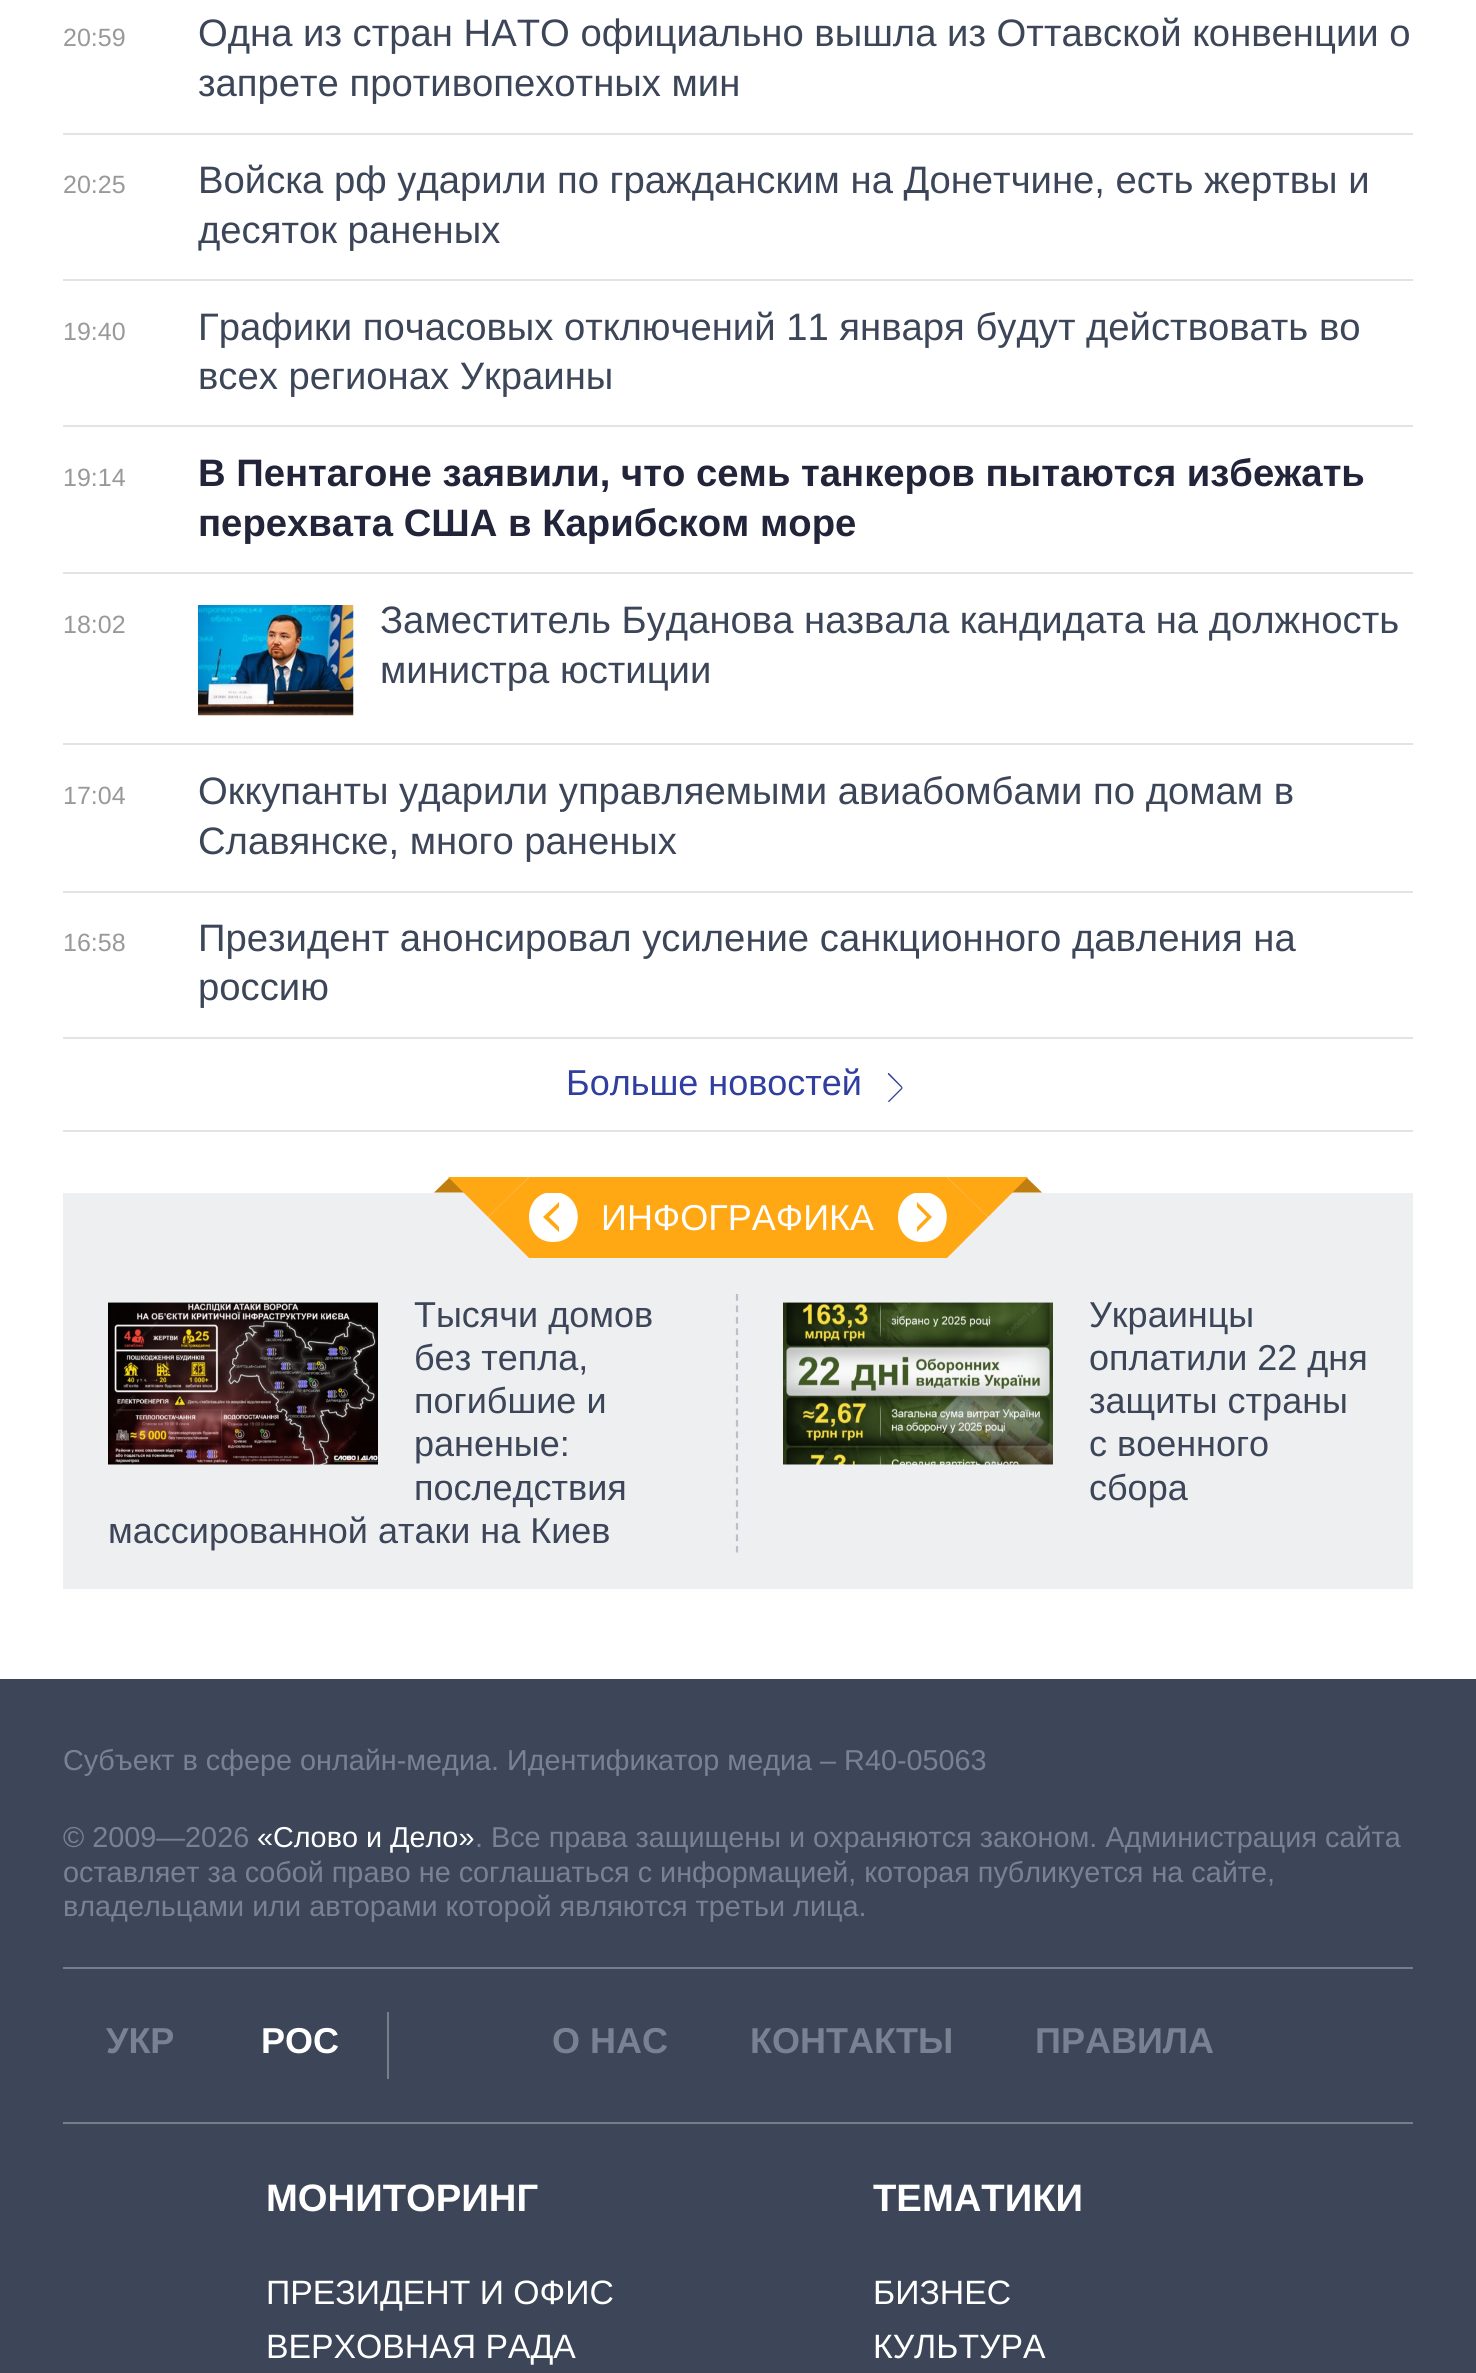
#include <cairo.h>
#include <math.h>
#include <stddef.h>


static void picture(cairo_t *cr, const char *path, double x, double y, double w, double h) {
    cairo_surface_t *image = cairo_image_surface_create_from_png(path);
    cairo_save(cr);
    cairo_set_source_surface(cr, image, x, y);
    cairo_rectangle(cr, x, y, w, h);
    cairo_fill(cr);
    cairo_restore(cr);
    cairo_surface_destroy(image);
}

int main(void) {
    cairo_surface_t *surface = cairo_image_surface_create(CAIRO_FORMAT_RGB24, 1476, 2373);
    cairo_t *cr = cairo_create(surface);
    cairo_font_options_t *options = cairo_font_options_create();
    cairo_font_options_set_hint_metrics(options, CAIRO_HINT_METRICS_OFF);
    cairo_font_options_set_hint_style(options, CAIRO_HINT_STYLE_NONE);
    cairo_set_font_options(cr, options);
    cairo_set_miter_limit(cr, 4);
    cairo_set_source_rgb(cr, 1, 1, 1);
    cairo_paint(cr);
    cairo_select_font_face(cr, "Liberation Sans", CAIRO_FONT_SLANT_NORMAL, CAIRO_FONT_WEIGHT_NORMAL);
    cairo_set_font_size(cr, 25);
    cairo_set_source_rgb(cr, 0.6, 0.6, 0.6);
    cairo_move_to(cr, 63, 46);
    cairo_show_text(cr, "20:59");
    cairo_set_font_size(cr, 38.25);
    cairo_set_source_rgb(cr, 0.235, 0.275, 0.345);
    cairo_move_to(cr, 198, 46);
    cairo_show_text(cr, "Одна из стран НАТО официально вышла из Оттавской конвенции о");
    cairo_move_to(cr, 198, 96);
    cairo_show_text(cr, "запрете противопехотных мин");
    cairo_set_source_rgb(cr, 0.89, 0.89, 0.89);
    cairo_rectangle(cr, 63, 133, 1350, 2);
    cairo_fill(cr);
    cairo_set_font_size(cr, 25);
    cairo_set_source_rgb(cr, 0.6, 0.6, 0.6);
    cairo_move_to(cr, 63, 193);
    cairo_show_text(cr, "20:25");
    cairo_set_font_size(cr, 38.25);
    cairo_set_source_rgb(cr, 0.235, 0.275, 0.345);
    cairo_move_to(cr, 198, 193);
    cairo_show_text(cr, "Войска рф ударили по гражданским на Донетчине, есть жертвы и");
    cairo_move_to(cr, 198, 243);
    cairo_show_text(cr, "десяток раненых");
    cairo_set_source_rgb(cr, 0.89, 0.89, 0.89);
    cairo_rectangle(cr, 63, 279, 1350, 2);
    cairo_fill(cr);
    cairo_set_font_size(cr, 25);
    cairo_set_source_rgb(cr, 0.6, 0.6, 0.6);
    cairo_move_to(cr, 63, 340);
    cairo_show_text(cr, "19:40");
    cairo_set_font_size(cr, 38.25);
    cairo_set_source_rgb(cr, 0.235, 0.275, 0.345);
    cairo_move_to(cr, 198, 340);
    cairo_show_text(cr, "Графики почасовых отключений 11 января будут действовать во");
    cairo_move_to(cr, 198, 389);
    cairo_show_text(cr, "всех регионах Украины");
    cairo_set_source_rgb(cr, 0.89, 0.89, 0.89);
    cairo_rectangle(cr, 63, 425, 1350, 2);
    cairo_fill(cr);
    cairo_set_font_size(cr, 25);
    cairo_set_source_rgb(cr, 0.6, 0.6, 0.6);
    cairo_move_to(cr, 63, 486);
    cairo_show_text(cr, "19:14");
    cairo_select_font_face(cr, "Liberation Sans", CAIRO_FONT_SLANT_NORMAL, CAIRO_FONT_WEIGHT_BOLD);
    cairo_set_font_size(cr, 38.25);
    cairo_set_source_rgb(cr, 0.133, 0.141, 0.227);
    cairo_move_to(cr, 198, 486);
    cairo_show_text(cr, "В Пентагоне заявили, что семь танкеров пытаются избежать");
    cairo_move_to(cr, 198, 536);
    cairo_show_text(cr, "перехвата США в Карибском море");
    cairo_set_source_rgb(cr, 0.89, 0.89, 0.89);
    cairo_rectangle(cr, 63, 572, 1350, 2);
    cairo_fill(cr);
    cairo_select_font_face(cr, "Liberation Sans", CAIRO_FONT_SLANT_NORMAL, CAIRO_FONT_WEIGHT_NORMAL);
    cairo_set_font_size(cr, 25);
    cairo_set_source_rgb(cr, 0.6, 0.6, 0.6);
    cairo_move_to(cr, 63, 633);
    cairo_show_text(cr, "18:02");
    picture(cr, "img1.png", 198, 605, 156, 111);
    cairo_set_font_size(cr, 38.25);
    cairo_set_source_rgb(cr, 0.235, 0.275, 0.345);
    cairo_move_to(cr, 380, 633);
    cairo_show_text(cr, "Заместитель Буданова назвала кандидата на должность");
    cairo_move_to(cr, 380, 683);
    cairo_show_text(cr, "министра юстиции");
    cairo_set_source_rgb(cr, 0.89, 0.89, 0.89);
    cairo_rectangle(cr, 63, 743, 1350, 2);
    cairo_fill(cr);
    cairo_set_font_size(cr, 25);
    cairo_set_source_rgb(cr, 0.6, 0.6, 0.6);
    cairo_move_to(cr, 63, 804);
    cairo_show_text(cr, "17:04");
    cairo_set_font_size(cr, 38.25);
    cairo_set_source_rgb(cr, 0.235, 0.275, 0.345);
    cairo_move_to(cr, 198, 804);
    cairo_show_text(cr, "Оккупанты ударили управляемыми авиабомбами по домам в");
    cairo_move_to(cr, 198, 854);
    cairo_show_text(cr, "Славянске, много раненых");
    cairo_set_source_rgb(cr, 0.89, 0.89, 0.89);
    cairo_rectangle(cr, 63, 891, 1350, 2);
    cairo_fill(cr);
    cairo_set_font_size(cr, 25);
    cairo_set_source_rgb(cr, 0.6, 0.6, 0.6);
    cairo_move_to(cr, 63, 951);
    cairo_show_text(cr, "16:58");
    cairo_set_font_size(cr, 38.25);
    cairo_set_source_rgb(cr, 0.235, 0.275, 0.345);
    cairo_move_to(cr, 198, 951);
    cairo_show_text(cr, "Президент анонсировал усиление санкционного давления на");
    cairo_move_to(cr, 198, 1000);
    cairo_show_text(cr, "россию");
    cairo_set_source_rgb(cr, 0.89, 0.89, 0.89);
    cairo_rectangle(cr, 63, 1037, 1350, 2);
    cairo_fill(cr);
    cairo_rectangle(cr, 63, 1130, 1350, 2);
    cairo_fill(cr);
    cairo_set_font_size(cr, 36);
    cairo_set_source_rgb(cr, 0.188, 0.247, 0.624);
    cairo_move_to(cr, 566, 1095);
    cairo_show_text(cr, "Больше новостей");
    picture(cr, "img2.png", 887, 1073, 16, 29);
    cairo_set_source_rgb(cr, 0.929, 0.937, 0.945);
    cairo_rectangle(cr, 63, 1193, 1350, 396);
    cairo_fill(cr);
    cairo_set_source_rgb(cr, 1, 0.659, 0.078);
    cairo_rectangle(cr, 529, 1177, 418, 81);
    cairo_fill(cr);
    cairo_set_source_rgb(cr, 0.749, 0.494, 0.059);
    cairo_new_path(cr);
    cairo_move_to(cr, 466, 1192.5);
    cairo_line_to(cr, 434, 1192.5);
    cairo_line_to(cr, 450, 1177);
    cairo_close_path(cr);
    cairo_fill(cr);
    cairo_set_source_rgb(cr, 1, 0.659, 0.078);
    cairo_new_path(cr);
    cairo_move_to(cr, 448, 1177);
    cairo_line_to(cr, 529, 1177);
    cairo_line_to(cr, 488, 1217);
    cairo_close_path(cr);
    cairo_fill(cr);
    cairo_new_path(cr);
    cairo_move_to(cr, 529, 1177);
    cairo_line_to(cr, 529, 1258);
    cairo_line_to(cr, 488, 1217);
    cairo_close_path(cr);
    cairo_fill(cr);
    cairo_set_source_rgb(cr, 0.749, 0.494, 0.059);
    cairo_new_path(cr);
    cairo_move_to(cr, 1042, 1192.5);
    cairo_line_to(cr, 1010, 1192.5);
    cairo_line_to(cr, 1026, 1177);
    cairo_close_path(cr);
    cairo_fill(cr);
    cairo_set_source_rgb(cr, 1, 0.659, 0.078);
    cairo_new_path(cr);
    cairo_move_to(cr, 947, 1177);
    cairo_line_to(cr, 1028, 1177);
    cairo_line_to(cr, 988, 1217);
    cairo_close_path(cr);
    cairo_fill(cr);
    cairo_new_path(cr);
    cairo_move_to(cr, 947, 1258);
    cairo_line_to(cr, 947, 1177);
    cairo_line_to(cr, 988, 1217);
    cairo_close_path(cr);
    cairo_fill(cr);
    cairo_save(cr);
    cairo_rectangle(cr, 529, 1193, 49, 49);
    cairo_clip(cr);
    cairo_set_source_rgb(cr, 1, 1, 1);
    cairo_new_path(cr);
    cairo_move_to(cr, 553, 1192);
    cairo_curve_to(cr, 586, 1192, 586, 1242, 553, 1242);
    cairo_curve_to(cr, 521, 1242, 521, 1192, 553, 1192);
    cairo_close_path(cr);
    cairo_move_to(cr, 549, 1217);
    cairo_line_to(cr, 559, 1207);
    cairo_line_to(cr, 559, 1202);
    cairo_line_to(cr, 543, 1217);
    cairo_line_to(cr, 559, 1232);
    cairo_line_to(cr, 559, 1227);
    cairo_close_path(cr);
    cairo_fill(cr);
    cairo_restore(cr);
    cairo_set_source_rgb(cr, 1, 1, 1);
    cairo_move_to(cr, 601, 1230);
    cairo_show_text(cr, "ИНФОГРАФИКА");
    cairo_save(cr);
    cairo_rectangle(cr, 898, 1193, 49, 49);
    cairo_clip(cr);
    cairo_new_path(cr);
    cairo_move_to(cr, 922, 1242);
    cairo_curve_to(cr, 890, 1242, 890, 1192, 922, 1192);
    cairo_curve_to(cr, 955, 1192, 955, 1242, 922, 1242);
    cairo_close_path(cr);
    cairo_move_to(cr, 927, 1217);
    cairo_line_to(cr, 917, 1227);
    cairo_line_to(cr, 917, 1232);
    cairo_line_to(cr, 932, 1217);
    cairo_line_to(cr, 917, 1202);
    cairo_line_to(cr, 917, 1207);
    cairo_close_path(cr);
    cairo_fill(cr);
    cairo_restore(cr);
    picture(cr, "img3.png", 108, 1302, 270, 163);
    cairo_set_source_rgb(cr, 0.235, 0.275, 0.345);
    cairo_move_to(cr, 414, 1327);
    cairo_show_text(cr, "Тысячи домов");
    cairo_move_to(cr, 414, 1370);
    cairo_show_text(cr, "без тепла,");
    cairo_move_to(cr, 414, 1413);
    cairo_show_text(cr, "погибшие и");
    cairo_move_to(cr, 414, 1456);
    cairo_show_text(cr, "раненые:");
    cairo_move_to(cr, 414, 1500);
    cairo_show_text(cr, "последствия");
    cairo_move_to(cr, 108, 1543);
    cairo_show_text(cr, "массированной атаки на Киев");
    cairo_new_path(cr);
    cairo_move_to(cr, 737, 1294);
    cairo_line_to(cr, 737, 1552.5);
    cairo_set_source_rgb(cr, 0.733, 0.753, 0.776);
    cairo_set_line_width(cr, 2.2);
    cairo_set_dash(cr, (double[]){6.75, 4.7}, 2, 0);
    cairo_stroke(cr);
    picture(cr, "img4.png", 783, 1302, 270, 163);
    cairo_set_source_rgb(cr, 0.235, 0.275, 0.345);
    cairo_move_to(cr, 1089, 1327);
    cairo_show_text(cr, "Украинцы");
    cairo_move_to(cr, 1089, 1370);
    cairo_show_text(cr, "оплатили 22 дня");
    cairo_move_to(cr, 1089, 1413);
    cairo_show_text(cr, "защиты страны");
    cairo_move_to(cr, 1089, 1456);
    cairo_show_text(cr, "с военного");
    cairo_move_to(cr, 1089, 1500);
    cairo_show_text(cr, "сбора");
    cairo_rectangle(cr, 0, 1679, 1476, 694);
    cairo_fill(cr);
    cairo_set_font_size(cr, 28.8);
    cairo_set_source_rgb(cr, 0.475, 0.51, 0.573);
    cairo_move_to(cr, 63, 1770);
    cairo_show_text(cr, "Субъект в сфере онлайн-медиа. Идентификатор медиа – R40-05063");
    cairo_move_to(cr, 63, 1847);
    cairo_show_text(cr, "© 2009—2026");
    cairo_set_source_rgb(cr, 1, 1, 1);
    cairo_move_to(cr, 257, 1847);
    cairo_show_text(cr, "«Слово и Дело»");
    cairo_set_source_rgb(cr, 0.475, 0.51, 0.573);
    cairo_move_to(cr, 475, 1847);
    cairo_show_text(cr, ". Все права защищены и охраняются законом. Администрация сайта");
    cairo_move_to(cr, 63, 1882);
    cairo_show_text(cr, "оставляет за собой право не соглашаться с информацией, которая публикуется на сайте,");
    cairo_move_to(cr, 63, 1916);
    cairo_show_text(cr, "владельцами или авторами которой являются третьи лица.");
    cairo_set_source_rgb(cr, 0.467, 0.494, 0.541);
    cairo_rectangle(cr, 63, 1967, 1350, 2);
    cairo_fill(cr);
    cairo_rectangle(cr, 63, 2122, 1350, 2);
    cairo_fill(cr);
    cairo_select_font_face(cr, "Liberation Sans", CAIRO_FONT_SLANT_NORMAL, CAIRO_FONT_WEIGHT_BOLD);
    cairo_set_font_size(cr, 36);
    cairo_set_source_rgb(cr, 0.475, 0.51, 0.573);
    cairo_move_to(cr, 106, 2053);
    cairo_show_text(cr, "УКР");
    cairo_set_source_rgb(cr, 1, 1, 1);
    cairo_move_to(cr, 261, 2053);
    cairo_show_text(cr, "РОС");
    cairo_set_source_rgb(cr, 0.467, 0.494, 0.541);
    cairo_rectangle(cr, 387, 2012, 2, 67);
    cairo_fill(cr);
    cairo_set_source_rgb(cr, 0.475, 0.51, 0.573);
    cairo_move_to(cr, 552, 2053);
    cairo_show_text(cr, "О НАС");
    cairo_move_to(cr, 750, 2053);
    cairo_show_text(cr, "КОНТАКТЫ");
    cairo_move_to(cr, 1035, 2053);
    cairo_show_text(cr, "ПРАВИЛА");
    cairo_set_font_size(cr, 38.25);
    cairo_set_source_rgb(cr, 1, 1, 1);
    cairo_move_to(cr, 266, 2211);
    cairo_show_text(cr, "МОНИТОРИНГ");
    cairo_select_font_face(cr, "Liberation Sans", CAIRO_FONT_SLANT_NORMAL, CAIRO_FONT_WEIGHT_NORMAL);
    cairo_set_font_size(cr, 33.75);
    cairo_move_to(cr, 266, 2304);
    cairo_show_text(cr, "ПРЕЗИДЕНТ И ОФИС");
    cairo_move_to(cr, 266, 2358);
    cairo_show_text(cr, "ВЕРХОВНАЯ РАДА");
    cairo_select_font_face(cr, "Liberation Sans", CAIRO_FONT_SLANT_NORMAL, CAIRO_FONT_WEIGHT_BOLD);
    cairo_set_font_size(cr, 38.25);
    cairo_move_to(cr, 873, 2211);
    cairo_show_text(cr, "ТЕМАТИКИ");
    cairo_select_font_face(cr, "Liberation Sans", CAIRO_FONT_SLANT_NORMAL, CAIRO_FONT_WEIGHT_NORMAL);
    cairo_set_font_size(cr, 33.75);
    cairo_move_to(cr, 873, 2304);
    cairo_show_text(cr, "БИЗНЕС");
    cairo_move_to(cr, 873, 2358);
    cairo_show_text(cr, "КУЛЬТУРА");
    cairo_surface_write_to_png(surface, "page.png");
    cairo_font_options_destroy(options);
    cairo_destroy(cr);
    cairo_surface_destroy(surface);
    return 0;
}
